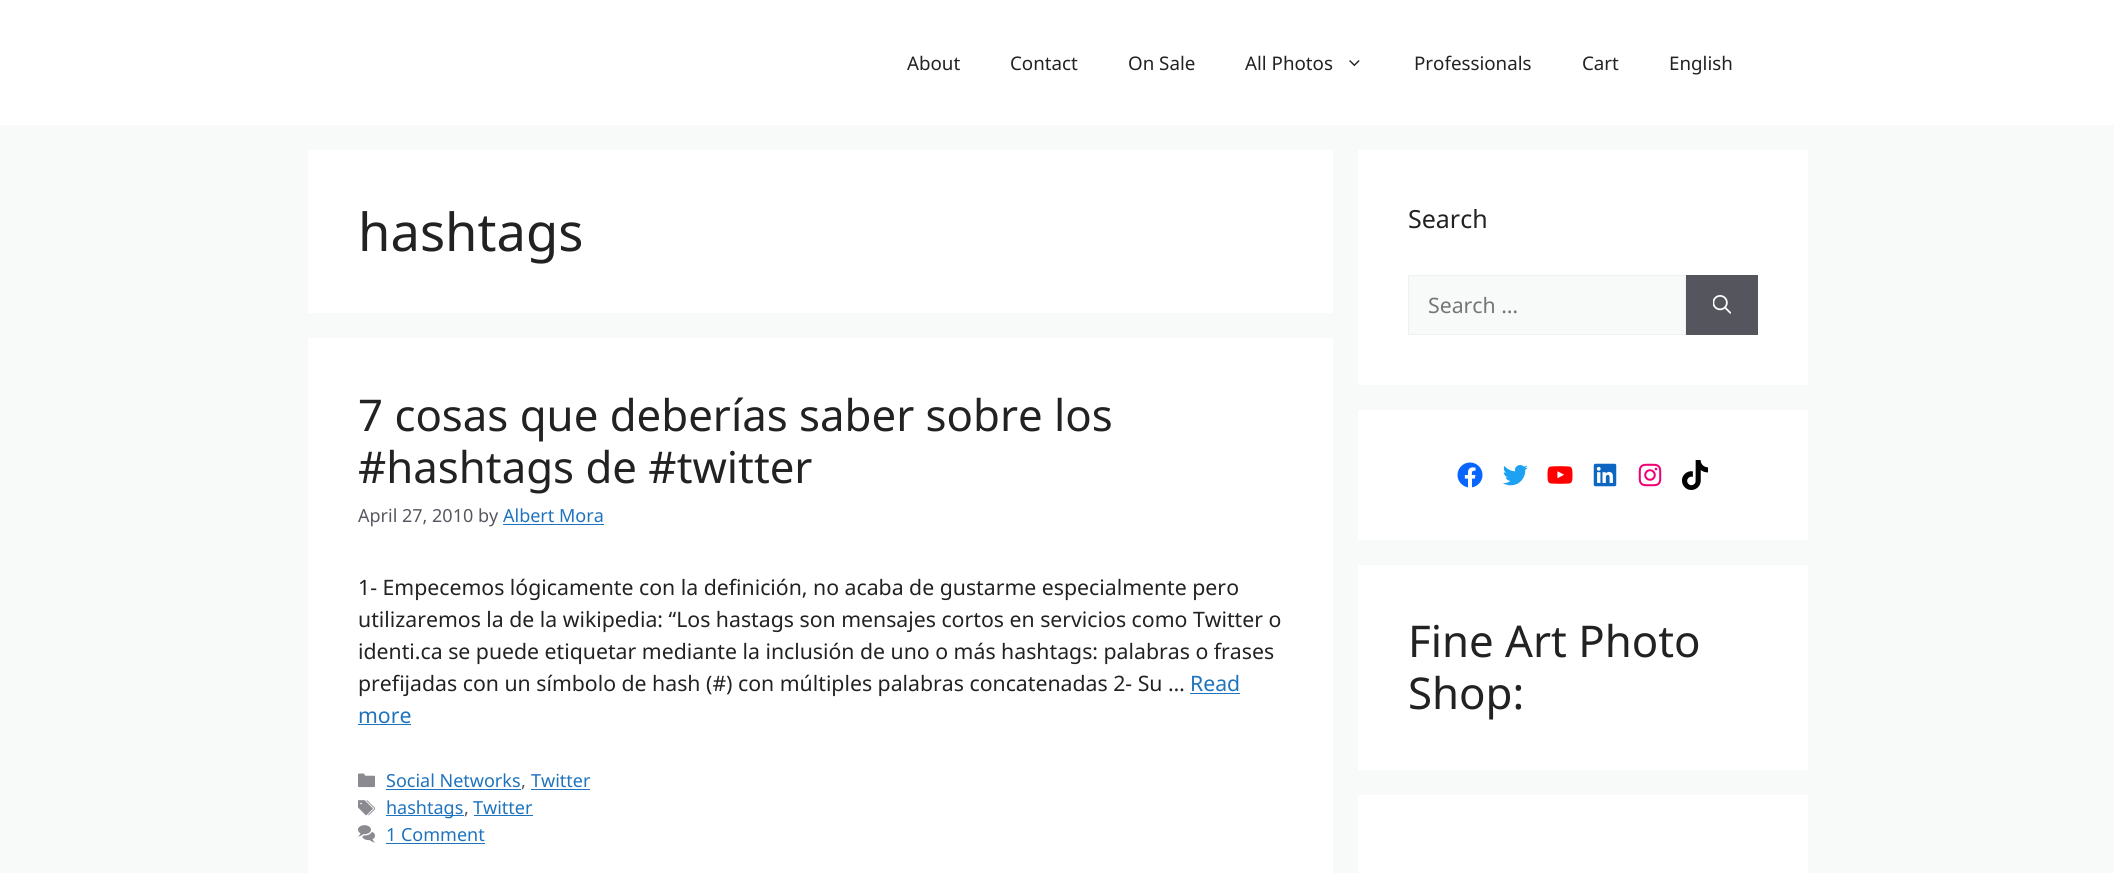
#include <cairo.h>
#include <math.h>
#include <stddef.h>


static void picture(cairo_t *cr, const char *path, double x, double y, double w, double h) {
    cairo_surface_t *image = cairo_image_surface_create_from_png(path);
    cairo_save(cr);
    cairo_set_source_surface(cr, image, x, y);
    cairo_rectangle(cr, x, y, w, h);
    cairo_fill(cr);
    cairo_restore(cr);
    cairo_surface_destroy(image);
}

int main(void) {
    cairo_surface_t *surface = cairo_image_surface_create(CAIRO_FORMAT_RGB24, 2114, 873);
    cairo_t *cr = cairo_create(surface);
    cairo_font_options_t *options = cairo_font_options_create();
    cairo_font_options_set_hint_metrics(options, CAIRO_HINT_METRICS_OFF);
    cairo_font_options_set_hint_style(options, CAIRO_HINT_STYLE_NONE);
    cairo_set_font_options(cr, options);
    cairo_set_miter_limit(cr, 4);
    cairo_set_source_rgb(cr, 0.969, 0.973, 0.976);
    cairo_paint(cr);
    cairo_set_source_rgb(cr, 1, 1, 1);
    cairo_rectangle(cr, 0, 0, 2114, 125);
    cairo_fill(cr);
    cairo_select_font_face(cr, "Noto Sans", CAIRO_FONT_SLANT_NORMAL, CAIRO_FONT_WEIGHT_NORMAL);
    cairo_set_font_size(cr, 18.75);
    cairo_set_source_rgb(cr, 0.133, 0.133, 0.133);
    cairo_move_to(cr, 907, 70);
    cairo_show_text(cr, "About");
    cairo_move_to(cr, 1010, 70);
    cairo_show_text(cr, "Contact");
    cairo_move_to(cr, 1128, 70);
    cairo_show_text(cr, "On Sale");
    cairo_move_to(cr, 1245, 70);
    cairo_show_text(cr, "All Photos");
    picture(cr, "img1.png", 1349, 60, 11, 7);
    cairo_move_to(cr, 1414, 70);
    cairo_show_text(cr, "Professionals");
    cairo_move_to(cr, 1582, 70);
    cairo_show_text(cr, "Cart");
    cairo_move_to(cr, 1669, 70);
    cairo_show_text(cr, "English");
    cairo_set_source_rgb(cr, 1, 1, 1);
    cairo_rectangle(cr, 308, 150, 1025, 163);
    cairo_fill(cr);
    cairo_set_font_size(cr, 52.5);
    cairo_set_source_rgb(cr, 0.133, 0.133, 0.133);
    cairo_move_to(cr, 358, 251);
    cairo_show_text(cr, "hashtags");
    cairo_set_source_rgb(cr, 1, 1, 1);
    cairo_rectangle(cr, 308, 338, 1025, 535);
    cairo_fill(cr);
    cairo_set_font_size(cr, 43.75);
    cairo_set_source_rgb(cr, 0.133, 0.133, 0.133);
    cairo_move_to(cr, 358, 431);
    cairo_show_text(cr, "7 cosas que deberías saber sobre los");
    cairo_move_to(cr, 358, 483);
    cairo_show_text(cr, "#hashtags de #twitter");
    cairo_set_font_size(cr, 18);
    cairo_set_source_rgb(cr, 0.341, 0.341, 0.376);
    cairo_move_to(cr, 358, 522);
    cairo_show_text(cr, "April 27, 2010 by");
    cairo_set_source_rgb(cr, 0.118, 0.451, 0.745);
    cairo_move_to(cr, 503, 522);
    cairo_show_text(cr, "Albert Mora");
    cairo_rectangle(cr, 503, 524, 101, 1);
    cairo_fill(cr);
    cairo_set_font_size(cr, 21.25);
    cairo_set_source_rgb(cr, 0.133, 0.133, 0.133);
    cairo_move_to(cr, 358, 595);
    cairo_show_text(cr, "1- Empecemos lógicamente con la definición, no acaba de gustarme especialmente pero");
    cairo_move_to(cr, 358, 627);
    cairo_show_text(cr, "utilizaremos la de la wikipedia: “Los hastags son mensajes cortos en servicios como Twitter o");
    cairo_move_to(cr, 358, 659);
    cairo_show_text(cr, "identi.ca se puede etiquetar mediante la inclusión de uno o más hashtags: palabras o frases");
    cairo_move_to(cr, 358, 691);
    cairo_show_text(cr, "prefijadas con un símbolo de hash (#) con múltiples palabras concatenadas 2- Su …");
    cairo_set_source_rgb(cr, 0.118, 0.451, 0.745);
    cairo_move_to(cr, 1190, 691);
    cairo_show_text(cr, "Read");
    cairo_rectangle(cr, 1190, 693, 50, 1);
    cairo_fill(cr);
    cairo_move_to(cr, 358, 723);
    cairo_show_text(cr, "more");
    cairo_rectangle(cr, 358, 724, 53, 1);
    cairo_fill(cr);
    picture(cr, "img2.png", 358, 773, 17, 15);
    cairo_set_font_size(cr, 18);
    cairo_move_to(cr, 386, 787);
    cairo_show_text(cr, "Social Networks");
    cairo_rectangle(cr, 386, 789, 135, 1);
    cairo_fill(cr);
    cairo_set_source_rgb(cr, 0.341, 0.341, 0.376);
    cairo_move_to(cr, 521, 787);
    cairo_show_text(cr, ",");
    cairo_set_source_rgb(cr, 0.118, 0.451, 0.745);
    cairo_move_to(cr, 531, 787);
    cairo_show_text(cr, "Twitter");
    cairo_rectangle(cr, 531, 789, 59, 1);
    cairo_fill(cr);
    picture(cr, "img3.png", 358, 800, 17, 16);
    cairo_rectangle(cr, 386, 815, 78, 1);
    cairo_fill(cr);
    cairo_move_to(cr, 386, 814);
    cairo_show_text(cr, "hashtags");
    cairo_set_source_rgb(cr, 0.341, 0.341, 0.376);
    cairo_move_to(cr, 464, 814);
    cairo_show_text(cr, ",");
    cairo_set_source_rgb(cr, 0.118, 0.451, 0.745);
    cairo_move_to(cr, 473, 814);
    cairo_show_text(cr, "Twitter");
    cairo_rectangle(cr, 474, 815, 59, 1);
    cairo_fill(cr);
    picture(cr, "img4.png", 358, 825, 17, 18);
    cairo_move_to(cr, 386, 841);
    cairo_show_text(cr, "1 Comment");
    cairo_rectangle(cr, 386, 843, 99, 1);
    cairo_fill(cr);
    cairo_set_source_rgb(cr, 1, 1, 1);
    cairo_rectangle(cr, 1358, 150, 450, 235);
    cairo_fill(cr);
    cairo_set_font_size(cr, 25);
    cairo_set_source_rgb(cr, 0.133, 0.133, 0.133);
    cairo_move_to(cr, 1408, 228);
    cairo_show_text(cr, "Search");
    cairo_set_source_rgb(cr, 0.969, 0.973, 0.976);
    cairo_rectangle(cr, 1408.5, 275.5, 277, 59);
    cairo_fill_preserve(cr);
    cairo_set_source_rgb(cr, 0.941, 0.941, 0.941);
    cairo_set_line_width(cr, 1);
    cairo_stroke(cr);
    cairo_set_font_size(cr, 21.25);
    cairo_set_source_rgb(cr, 0.459, 0.459, 0.459);
    cairo_move_to(cr, 1428, 313);
    cairo_show_text(cr, "Search …");
    cairo_set_source_rgb(cr, 0.333, 0.333, 0.369);
    cairo_rectangle(cr, 1686, 275, 72, 60);
    cairo_fill(cr);
    picture(cr, "img5.png", 1713, 295, 18, 19);
    cairo_set_source_rgb(cr, 1, 1, 1);
    cairo_rectangle(cr, 1358, 410, 450, 130);
    cairo_fill(cr);
    picture(cr, "img6.png", 1457, 462, 26, 26);
    picture(cr, "img7.png", 1503, 465, 25, 21);
    picture(cr, "img8.png", 1547, 466, 26, 18);
    picture(cr, "img9.png", 1593, 463, 24, 24);
    picture(cr, "img10.png", 1638, 463, 24, 24);
    picture(cr, "img11.png", 1682, 460, 27, 30);
    cairo_rectangle(cr, 1358, 565, 450, 205);
    cairo_fill(cr);
    cairo_set_font_size(cr, 43.75);
    cairo_set_source_rgb(cr, 0.133, 0.133, 0.133);
    cairo_move_to(cr, 1408, 657);
    cairo_show_text(cr, "Fine Art Photo");
    cairo_move_to(cr, 1408, 709);
    cairo_show_text(cr, "Shop:");
    cairo_set_source_rgb(cr, 1, 1, 1);
    cairo_rectangle(cr, 1358, 795, 450, 78);
    cairo_fill(cr);
    cairo_surface_write_to_png(surface, "page.png");
    cairo_font_options_destroy(options);
    cairo_destroy(cr);
    cairo_surface_destroy(surface);
    return 0;
}
